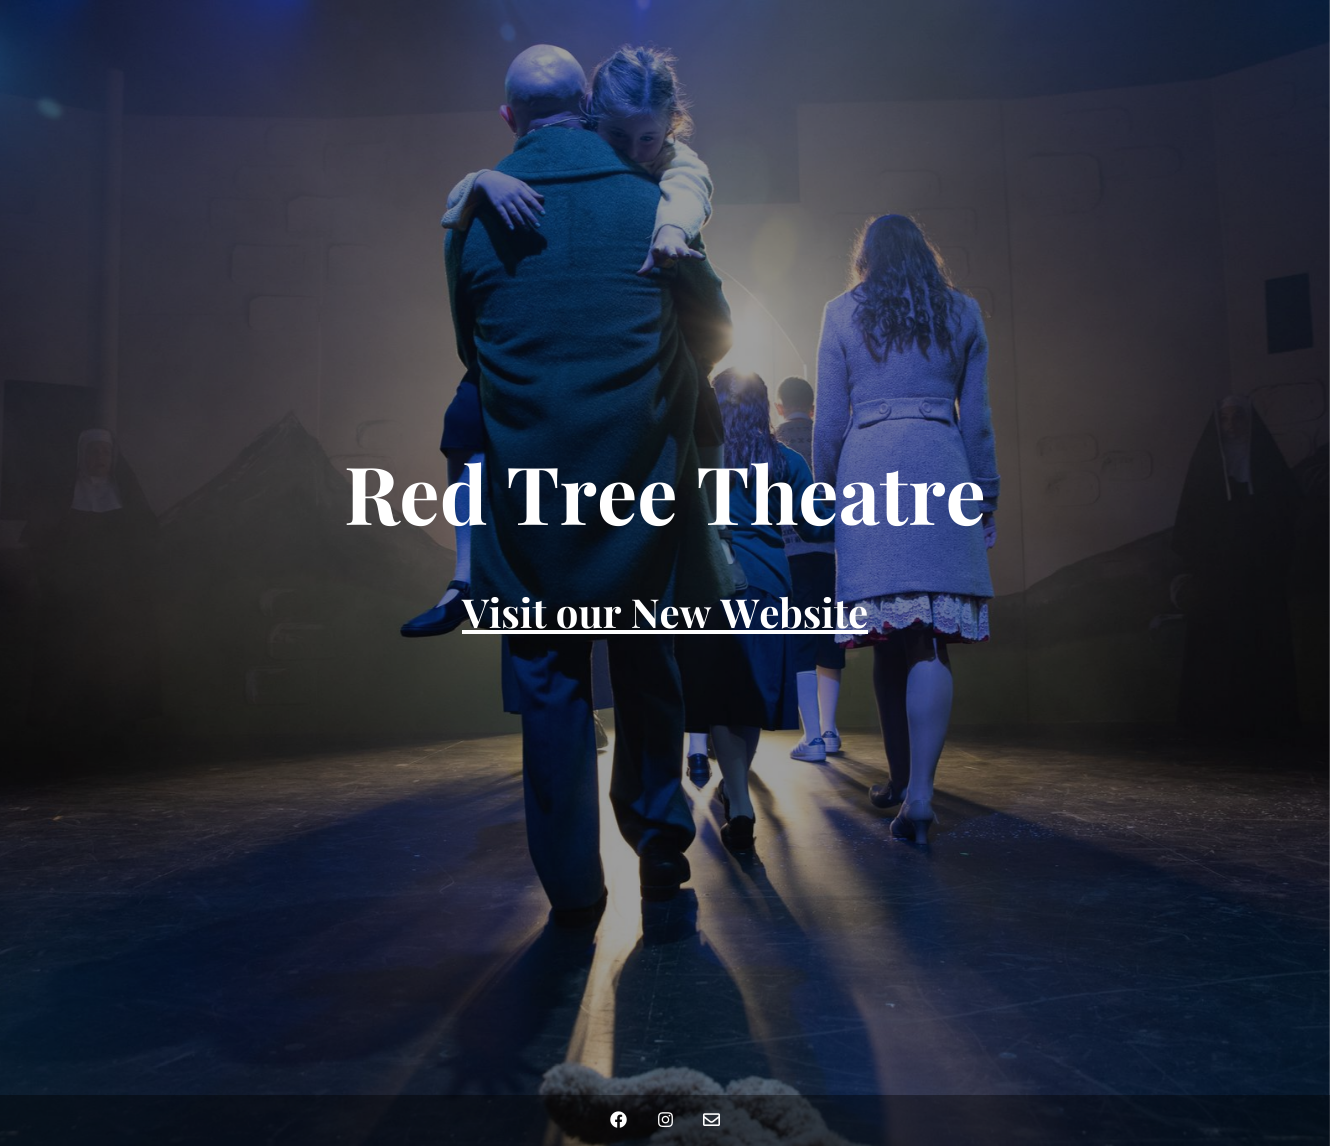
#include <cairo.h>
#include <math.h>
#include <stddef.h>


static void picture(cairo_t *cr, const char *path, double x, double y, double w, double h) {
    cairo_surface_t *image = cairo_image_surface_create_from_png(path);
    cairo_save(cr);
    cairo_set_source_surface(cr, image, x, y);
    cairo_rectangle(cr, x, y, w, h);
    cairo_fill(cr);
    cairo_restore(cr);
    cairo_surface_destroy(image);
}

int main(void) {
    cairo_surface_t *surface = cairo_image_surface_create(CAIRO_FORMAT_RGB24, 1330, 1146);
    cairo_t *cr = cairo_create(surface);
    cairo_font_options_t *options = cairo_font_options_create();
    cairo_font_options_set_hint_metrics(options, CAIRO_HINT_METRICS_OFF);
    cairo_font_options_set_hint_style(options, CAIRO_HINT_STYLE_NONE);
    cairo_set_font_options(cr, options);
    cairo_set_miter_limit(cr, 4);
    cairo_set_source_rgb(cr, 1, 1, 1);
    cairo_paint(cr);
    picture(cr, "img1.png", 0, 0, 1330, 1146);
    cairo_select_font_face(cr, "Playfair Display", CAIRO_FONT_SLANT_NORMAL, CAIRO_FONT_WEIGHT_BOLD);
    cairo_set_font_size(cr, 80);
    cairo_set_source_rgb(cr, 1, 1, 1);
    cairo_move_to(cr, 344, 525);
    cairo_show_text(cr, "Red Tree Theatre");
    cairo_set_font_size(cr, 40);
    cairo_move_to(cr, 462, 628);
    cairo_show_text(cr, "Visit our New Website");
    cairo_rectangle(cr, 462, 630, 406, 4);
    cairo_fill(cr);
    cairo_set_source_rgba(cr, 0, 0, 0, 0.4);
    cairo_rectangle(cr, 0, 1095, 1330, 51);
    cairo_fill(cr);
    picture(cr, "img2.png", 610, 1111, 17, 17);
    picture(cr, "img3.png", 658, 1112, 15, 16);
    picture(cr, "img4.png", 703, 1113, 17, 13);
    cairo_surface_write_to_png(surface, "page.png");
    cairo_font_options_destroy(options);
    cairo_destroy(cr);
    cairo_surface_destroy(surface);
    return 0;
}
